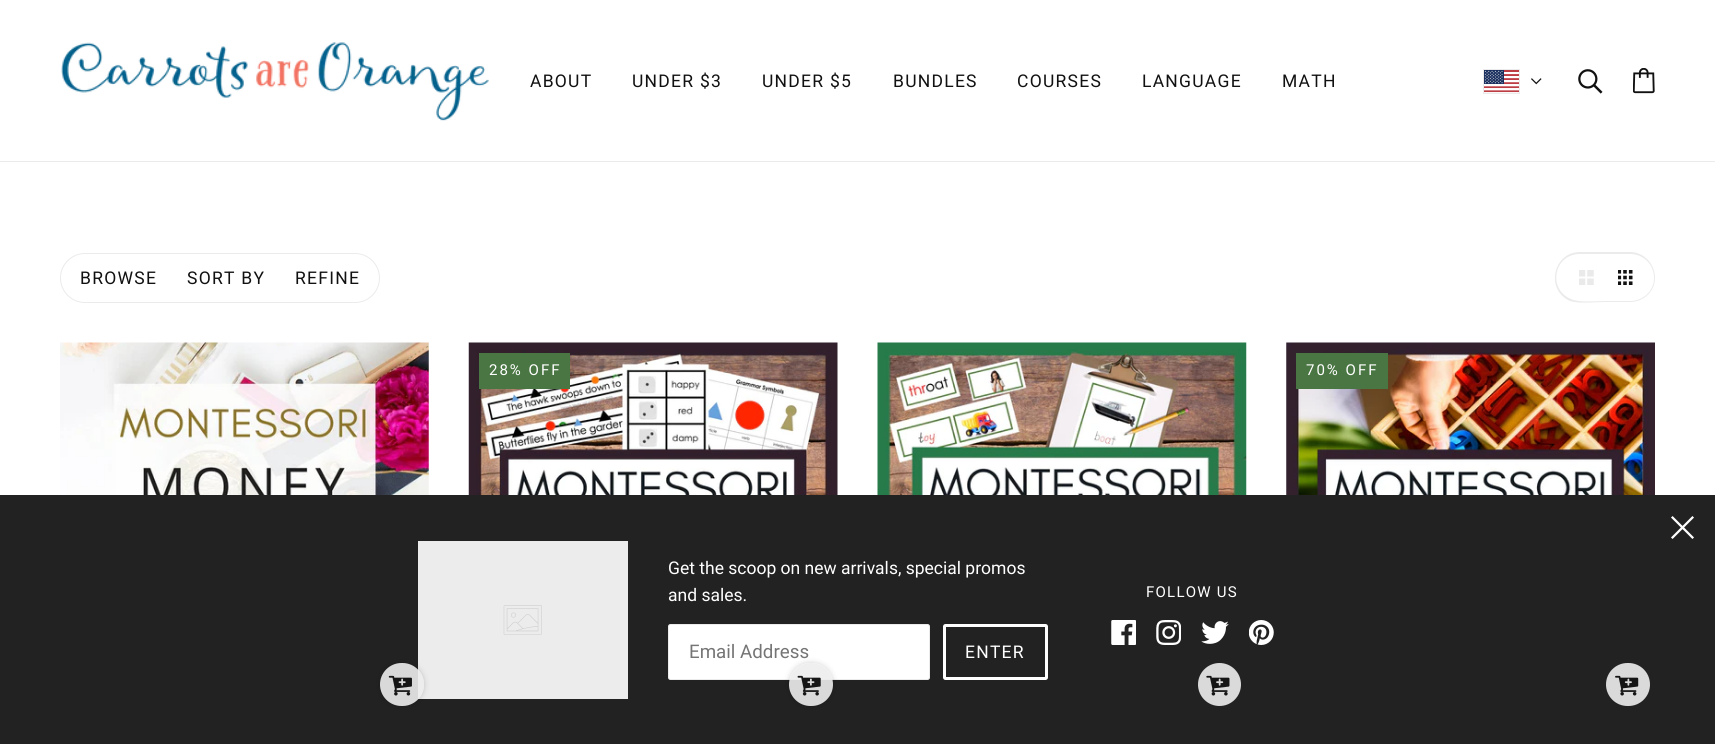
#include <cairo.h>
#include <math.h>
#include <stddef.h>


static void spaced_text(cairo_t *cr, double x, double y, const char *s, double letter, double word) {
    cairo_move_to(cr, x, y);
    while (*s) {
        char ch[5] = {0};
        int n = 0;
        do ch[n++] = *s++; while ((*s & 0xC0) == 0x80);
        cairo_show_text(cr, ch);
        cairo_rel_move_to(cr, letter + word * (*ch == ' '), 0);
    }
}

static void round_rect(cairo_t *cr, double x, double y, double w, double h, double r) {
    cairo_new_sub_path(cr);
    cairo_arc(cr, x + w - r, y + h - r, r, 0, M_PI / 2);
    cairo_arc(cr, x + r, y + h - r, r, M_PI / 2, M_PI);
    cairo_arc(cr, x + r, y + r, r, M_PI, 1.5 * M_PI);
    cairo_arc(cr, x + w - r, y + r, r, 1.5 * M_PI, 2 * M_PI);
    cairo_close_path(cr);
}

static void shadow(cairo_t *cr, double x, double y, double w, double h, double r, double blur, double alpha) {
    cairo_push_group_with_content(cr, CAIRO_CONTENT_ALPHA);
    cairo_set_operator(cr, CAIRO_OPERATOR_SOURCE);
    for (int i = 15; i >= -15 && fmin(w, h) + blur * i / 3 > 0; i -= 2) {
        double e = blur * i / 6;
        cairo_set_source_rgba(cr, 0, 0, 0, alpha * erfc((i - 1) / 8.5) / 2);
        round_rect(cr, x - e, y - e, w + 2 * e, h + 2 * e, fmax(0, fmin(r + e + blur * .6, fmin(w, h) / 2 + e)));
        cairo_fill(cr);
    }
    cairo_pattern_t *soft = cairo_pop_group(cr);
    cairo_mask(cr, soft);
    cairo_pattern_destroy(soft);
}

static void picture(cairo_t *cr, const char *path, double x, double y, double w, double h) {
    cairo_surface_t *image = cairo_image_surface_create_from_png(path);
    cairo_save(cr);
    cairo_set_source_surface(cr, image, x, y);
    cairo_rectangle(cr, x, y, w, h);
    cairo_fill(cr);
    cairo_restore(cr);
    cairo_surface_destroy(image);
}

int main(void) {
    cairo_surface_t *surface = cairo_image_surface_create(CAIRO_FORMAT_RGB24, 1715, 744);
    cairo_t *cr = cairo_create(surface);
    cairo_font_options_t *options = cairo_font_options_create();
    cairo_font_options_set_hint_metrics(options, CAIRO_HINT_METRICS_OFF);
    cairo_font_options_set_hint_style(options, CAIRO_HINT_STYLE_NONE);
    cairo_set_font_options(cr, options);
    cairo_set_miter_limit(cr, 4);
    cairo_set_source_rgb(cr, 1, 1, 1);
    cairo_paint(cr);
    cairo_set_source_rgb(cr, 0.918, 0.918, 0.918);
    cairo_rectangle(cr, 0, 161, 1715, 1);
    cairo_fill(cr);
    picture(cr, "img1.png", 61, 42, 428, 79);
    cairo_select_font_face(cr, "Roboto", CAIRO_FONT_SLANT_NORMAL, CAIRO_FONT_WEIGHT_NORMAL);
    cairo_set_font_size(cr, 17.5);
    cairo_set_source_rgb(cr, 0.067, 0.067, 0.067);
    spaced_text(cr, 530, 87, "ABOUT", 1.25, 0);
    spaced_text(cr, 632, 87, "UNDER $3", 1.25, 0);
    spaced_text(cr, 762, 87, "UNDER $5", 1.25, 0);
    spaced_text(cr, 893, 87, "BUNDLES", 1.25, 0);
    spaced_text(cr, 1017, 87, "COURSES", 1.25, 0);
    spaced_text(cr, 1142, 87, "LANGUAGE", 1.25, 0);
    spaced_text(cr, 1282, 87, "MATH", 1.25, 0);
    picture(cr, "img2.png", 1484, 70, 35, 23);
    cairo_rectangle(cr, 1483.5, 69.5, 36, 24);
    cairo_set_source_rgb(cr, 0.918, 0.918, 0.918);
    cairo_set_line_width(cr, 1);
    cairo_stroke(cr);
    picture(cr, "img3.png", 1531, 78, 11, 7);
    picture(cr, "img4.png", 1578, 69, 25, 25);
    picture(cr, "img5.png", 1633, 68, 22, 26);
    round_rect(cr, 60.5, 253.5, 319, 49, 24.5);
    cairo_stroke(cr);
    cairo_set_source_rgb(cr, 0.067, 0.067, 0.067);
    spaced_text(cr, 80, 284, "BROWSE", 1.25, 0);
    spaced_text(cr, 187, 284, "SORT BY", 1.25, 0);
    spaced_text(cr, 295, 284, "REFINE", 1.25, 0);
    cairo_set_source_rgb(cr, 0.918, 0.918, 0.918);
    cairo_set_fill_rule(cr, CAIRO_FILL_RULE_EVEN_ODD);
    cairo_new_path(cr);
    cairo_move_to(cr, 1580, 252);
    cairo_line_to(cr, 1605, 252);
    cairo_line_to(cr, 1605, 302);
    cairo_curve_to(cr, 1596, 302, 1579, 304, 1570, 301);
    cairo_curve_to(cr, 1545, 290, 1553, 252, 1580, 252);
    cairo_close_path(cr);
    cairo_move_to(cr, 1580, 254);
    cairo_line_to(cr, 1605, 254);
    cairo_line_to(cr, 1605, 301);
    cairo_curve_to(cr, 1596, 301, 1579, 303, 1571, 299);
    cairo_curve_to(cr, 1547, 289, 1554, 254, 1580, 254);
    cairo_close_path(cr);
    cairo_fill(cr);
    picture(cr, "img6.png", 1579, 270, 15, 15);
    cairo_new_path(cr);
    cairo_move_to(cr, 1605, 252);
    cairo_line_to(cr, 1630, 252);
    cairo_curve_to(cr, 1644, 252, 1655, 264, 1655, 278);
    cairo_curve_to(cr, 1655, 291, 1644, 302, 1630, 302);
    cairo_line_to(cr, 1605, 302);
    cairo_close_path(cr);
    cairo_move_to(cr, 1605, 254);
    cairo_line_to(cr, 1630, 254);
    cairo_curve_to(cr, 1643, 254, 1654, 264, 1654, 278);
    cairo_curve_to(cr, 1654, 291, 1643, 301, 1630, 301);
    cairo_line_to(cr, 1605, 301);
    cairo_close_path(cr);
    cairo_fill(cr);
    picture(cr, "img7.png", 1618, 270, 15, 15);
    picture(cr, "img8.png", 60, 342, 369, 153);
    cairo_set_source_rgb(cr, 0.133, 0.133, 0.133);
    cairo_rectangle(cr, 0, 495, 1715, 249);
    cairo_fill(cr);
    cairo_set_source_rgb(cr, 0.925, 0.925, 0.925);
    cairo_rectangle(cr, 418, 541, 210, 158);
    cairo_fill(cr);
    cairo_save(cr);
    cairo_new_path(cr);
    cairo_move_to(cr, 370, 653);
    cairo_line_to(cr, 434, 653);
    cairo_line_to(cr, 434, 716);
    cairo_line_to(cr, 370, 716);
    cairo_close_path(cr);
    cairo_move_to(cr, 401.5, 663);
    cairo_line_to(cr, 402.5, 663);
    cairo_curve_to(cr, 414.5, 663, 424, 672.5, 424, 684.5);
    cairo_curve_to(cr, 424, 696.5, 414.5, 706, 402.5, 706);
    cairo_line_to(cr, 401.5, 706);
    cairo_curve_to(cr, 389.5, 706, 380, 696.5, 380, 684.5);
    cairo_curve_to(cr, 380, 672.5, 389.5, 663, 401.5, 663);
    cairo_close_path(cr);
    cairo_clip(cr);
    cairo_set_source_rgb(cr, 0, 0, 0);
    shadow(cr, 380, 663, 44, 43, 21.5, 3, 0.18);
    cairo_restore(cr);
    cairo_set_source_rgba(cr, 0.933, 0.933, 0.933, 0.9);
    round_rect(cr, 380, 663, 44, 43, 21.5);
    cairo_fill(cr);
    picture(cr, "img9.png", 388, 675, 24, 21);
    picture(cr, "img10.png", 468, 342, 370, 153);
    cairo_set_source_rgb(cr, 1, 1, 1);
    round_rect(cr, 668.5, 624.5, 261, 55, 2);
    cairo_fill_preserve(cr);
    cairo_set_source_rgb(cr, 0.918, 0.918, 0.918);
    cairo_stroke(cr);
    cairo_save(cr);
    cairo_new_path(cr);
    cairo_move_to(cr, 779, 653);
    cairo_line_to(cr, 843, 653);
    cairo_line_to(cr, 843, 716);
    cairo_line_to(cr, 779, 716);
    cairo_close_path(cr);
    cairo_move_to(cr, 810.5, 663);
    cairo_line_to(cr, 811.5, 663);
    cairo_curve_to(cr, 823.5, 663, 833, 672.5, 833, 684.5);
    cairo_curve_to(cr, 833, 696.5, 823.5, 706, 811.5, 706);
    cairo_line_to(cr, 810.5, 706);
    cairo_curve_to(cr, 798.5, 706, 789, 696.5, 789, 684.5);
    cairo_curve_to(cr, 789, 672.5, 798.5, 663, 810.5, 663);
    cairo_close_path(cr);
    cairo_clip(cr);
    cairo_set_source_rgb(cr, 0, 0, 0);
    shadow(cr, 789, 663, 44, 43, 21.5, 3, 0.18);
    cairo_restore(cr);
    cairo_set_source_rgba(cr, 0.933, 0.933, 0.933, 0.9);
    round_rect(cr, 789, 663, 44, 43, 21.5);
    cairo_fill(cr);
    picture(cr, "img11.png", 797, 675, 24, 21);
    cairo_set_source_rgb(cr, 0.286, 0.463, 0.259);
    cairo_rectangle(cr, 479, 353, 91, 36);
    cairo_fill(cr);
    cairo_set_font_size(cr, 15);
    cairo_set_source_rgb(cr, 1, 1, 1);
    spaced_text(cr, 489, 375, "28% OFF", 2, 0);
    picture(cr, "img12.png", 877, 342, 370, 153);
    cairo_set_source_rgb(cr, 0.855, 0.855, 0.855);
    cairo_arc(cr, 1219.5, 684.5, 21.5, 0, 2 * M_PI);
    cairo_fill(cr);
    picture(cr, "img13.png", 1206, 675, 24, 21);
    picture(cr, "img14.png", 1286, 342, 369, 153);
    round_rect(cr, 1606, 663, 44, 43, 21.5);
    cairo_fill(cr);
    picture(cr, "img15.png", 1615, 675, 24, 21);
    cairo_set_source_rgb(cr, 0.286, 0.463, 0.259);
    cairo_rectangle(cr, 1296, 353, 92, 36);
    cairo_fill(cr);
    cairo_set_source_rgb(cr, 1, 1, 1);
    spaced_text(cr, 1306, 375, "70% OFF", 2, 0);
    picture(cr, "img16.png", 1671, 516, 23, 23);
    picture(cr, "img17.png", 503, 605, 39, 30);
    cairo_set_font_size(cr, 17.5);
    cairo_move_to(cr, 668, 574);
    cairo_show_text(cr, "Get the scoop on new arrivals, special promos");
    cairo_move_to(cr, 668, 601);
    cairo_show_text(cr, "and sales.");
    cairo_set_font_size(cr, 18.75);
    cairo_set_source_rgb(cr, 0.459, 0.459, 0.459);
    cairo_move_to(cr, 689, 658);
    cairo_show_text(cr, "Email Address");
    round_rect(cr, 944.5, 625.5, 102, 53, 1);
    cairo_set_source_rgb(cr, 1, 1, 1);
    cairo_set_line_width(cr, 3);
    cairo_stroke(cr);
    cairo_set_font_size(cr, 17.5);
    spaced_text(cr, 965, 658, "ENTER", 1.25, 0);
    cairo_set_font_size(cr, 15);
    spaced_text(cr, 1146, 597, "FOLLOW US", 1.25, 0);
    picture(cr, "img18.png", 1111, 620, 25, 25);
    picture(cr, "img19.png", 1156, 620, 25, 25);
    picture(cr, "img20.png", 1201, 621, 28, 23);
    picture(cr, "img21.png", 1249, 620, 25, 25);
    cairo_surface_write_to_png(surface, "page.png");
    cairo_font_options_destroy(options);
    cairo_destroy(cr);
    cairo_surface_destroy(surface);
    return 0;
}
